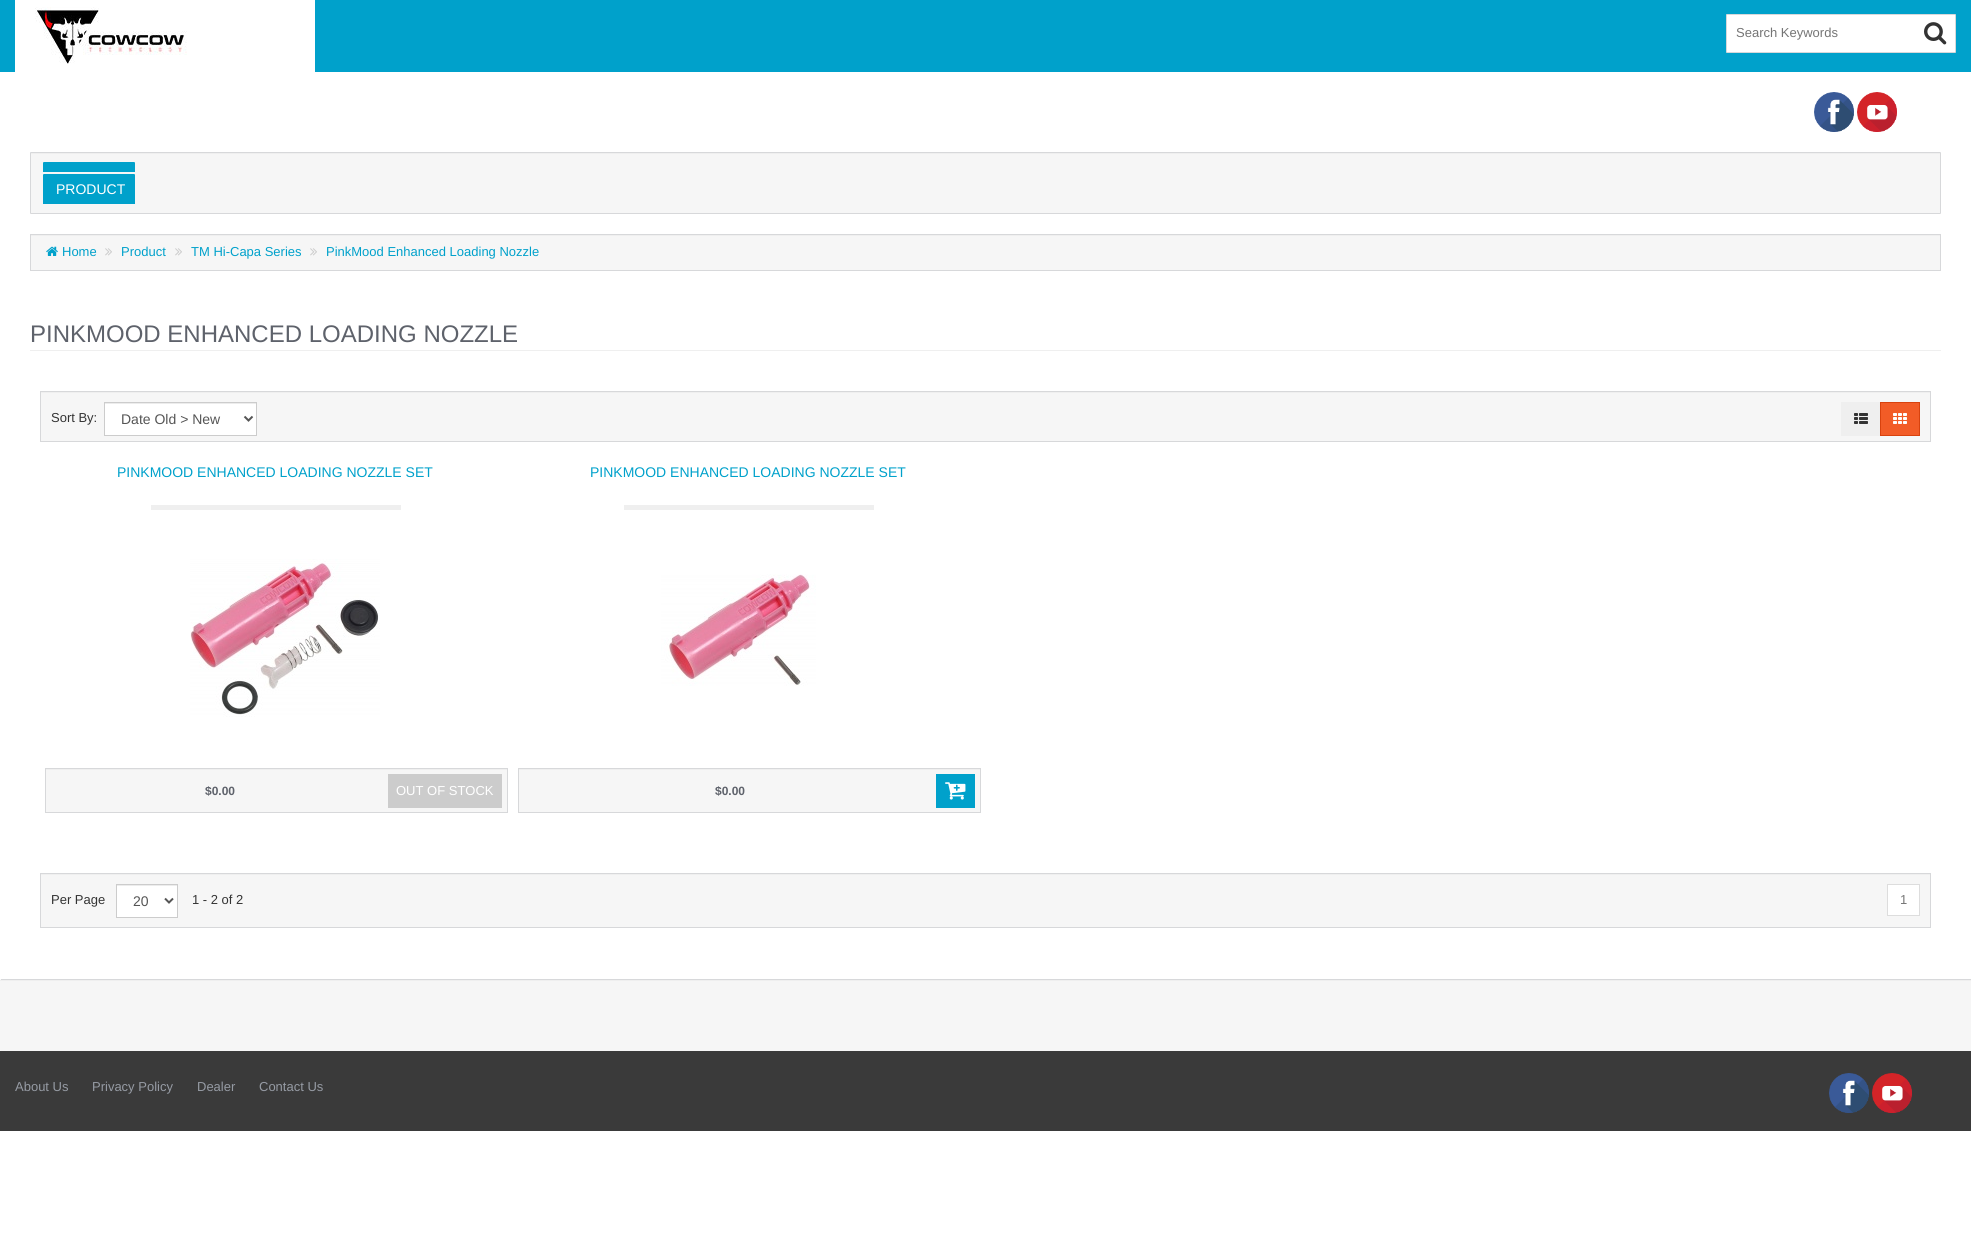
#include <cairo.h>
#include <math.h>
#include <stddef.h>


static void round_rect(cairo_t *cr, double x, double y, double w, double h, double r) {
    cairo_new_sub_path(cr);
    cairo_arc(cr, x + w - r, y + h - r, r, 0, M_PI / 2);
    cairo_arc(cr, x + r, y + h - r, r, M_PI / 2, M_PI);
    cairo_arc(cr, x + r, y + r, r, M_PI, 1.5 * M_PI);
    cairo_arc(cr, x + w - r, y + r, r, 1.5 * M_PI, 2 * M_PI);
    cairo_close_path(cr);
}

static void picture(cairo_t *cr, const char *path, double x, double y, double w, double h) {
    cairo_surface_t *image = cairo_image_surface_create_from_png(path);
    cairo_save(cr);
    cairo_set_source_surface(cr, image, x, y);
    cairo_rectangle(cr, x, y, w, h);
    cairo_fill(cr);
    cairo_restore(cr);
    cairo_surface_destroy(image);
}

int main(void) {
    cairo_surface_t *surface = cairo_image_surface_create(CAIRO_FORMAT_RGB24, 1971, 1257);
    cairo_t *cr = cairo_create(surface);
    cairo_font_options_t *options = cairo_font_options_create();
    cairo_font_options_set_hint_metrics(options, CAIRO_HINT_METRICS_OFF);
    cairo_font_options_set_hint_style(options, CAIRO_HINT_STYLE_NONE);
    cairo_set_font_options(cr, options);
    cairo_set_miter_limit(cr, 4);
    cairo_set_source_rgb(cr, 1, 1, 1);
    cairo_paint(cr);
    cairo_set_source_rgb(cr, 0, 0.631, 0.796);
    cairo_rectangle(cr, 0, 0, 1971, 72);
    cairo_fill(cr);
    cairo_set_source_rgb(cr, 1, 1, 1);
    cairo_rectangle(cr, 15, 0, 300, 72);
    cairo_fill(cr);
    picture(cr, "img1.png", 35, 7, 152, 57);
    round_rect(cr, 1726.5, 14.5, 229, 38, 0.5);
    cairo_fill_preserve(cr);
    cairo_set_source_rgb(cr, 0.843, 0.847, 0.855);
    cairo_set_line_width(cr, 1);
    cairo_stroke(cr);
    cairo_select_font_face(cr, "Liberation Sans", CAIRO_FONT_SLANT_NORMAL, CAIRO_FONT_WEIGHT_NORMAL);
    cairo_set_font_size(cr, 13);
    cairo_set_source_rgb(cr, 0.459, 0.459, 0.459);
    cairo_move_to(cr, 1736, 37);
    cairo_show_text(cr, "Search Keywords");
    picture(cr, "img2.png", 1924, 22, 23, 23);
    picture(cr, "img3.png", 1814, 92, 40, 40);
    picture(cr, "img4.png", 1857, 92, 40, 40);
    cairo_set_source_rgb(cr, 0.961, 0.961, 0.961);
    round_rect(cr, 30, 152, 1911, 62, 1);
    cairo_fill(cr);
    cairo_set_source_rgb(cr, 0.937, 0.937, 0.937);
    cairo_rectangle(cr, 31, 153, 1909, 1);
    cairo_fill(cr);
    round_rect(cr, 30.5, 152.5, 1910, 61, 0.5);
    cairo_set_source_rgb(cr, 0.843, 0.847, 0.855);
    cairo_stroke(cr);
    cairo_set_source_rgb(cr, 0, 0.631, 0.796);
    cairo_new_path(cr);
    cairo_move_to(cr, 44, 162);
    cairo_line_to(cr, 134, 162);
    cairo_curve_to(cr, 134.5, 162, 135, 162.5, 135, 163);
    cairo_line_to(cr, 135, 172);
    cairo_line_to(cr, 43, 172);
    cairo_line_to(cr, 43, 163);
    cairo_curve_to(cr, 43, 162.5, 43.5, 162, 44, 162);
    cairo_close_path(cr);
    cairo_fill(cr);
    cairo_new_path(cr);
    cairo_move_to(cr, 44, 174);
    cairo_line_to(cr, 134, 174);
    cairo_curve_to(cr, 134.5, 174, 135, 174.5, 135, 175);
    cairo_line_to(cr, 135, 204);
    cairo_line_to(cr, 43, 204);
    cairo_line_to(cr, 43, 175);
    cairo_curve_to(cr, 43, 174.5, 43.5, 174, 44, 174);
    cairo_close_path(cr);
    cairo_fill(cr);
    cairo_set_font_size(cr, 14);
    cairo_set_source_rgb(cr, 1, 1, 1);
    cairo_move_to(cr, 56, 194);
    cairo_show_text(cr, "PRODUCT");
    cairo_set_source_rgb(cr, 0.961, 0.961, 0.961);
    cairo_rectangle(cr, 31, 236, 1909, 34);
    cairo_fill(cr);
    cairo_set_source_rgb(cr, 0.937, 0.937, 0.937);
    cairo_rectangle(cr, 31, 235, 1909, 1);
    cairo_fill(cr);
    cairo_rectangle(cr, 30.5, 234.5, 1910, 36);
    cairo_set_source_rgb(cr, 0.843, 0.847, 0.855);
    cairo_stroke(cr);
    picture(cr, "img5.png", 46, 246, 12, 10);
    cairo_set_font_size(cr, 13);
    cairo_set_source_rgb(cr, 0, 0.631, 0.796);
    cairo_move_to(cr, 62, 256);
    cairo_show_text(cr, "Home");
    picture(cr, "img6.png", 105, 248, 7, 8);
    cairo_move_to(cr, 121, 256);
    cairo_show_text(cr, "Product");
    picture(cr, "img6.png", 175, 248, 7, 8);
    cairo_move_to(cr, 191, 256);
    cairo_show_text(cr, "TM Hi-Capa Series");
    picture(cr, "img6.png", 310, 248, 7, 8);
    cairo_move_to(cr, 326, 256);
    cairo_show_text(cr, "PinkMood Enhanced Loading Nozzle");
    cairo_set_source_rgb(cr, 0.937, 0.937, 0.937);
    cairo_rectangle(cr, 30, 350, 1911, 1);
    cairo_fill(cr);
    cairo_set_font_size(cr, 24);
    cairo_set_source_rgb(cr, 0.369, 0.384, 0.42);
    cairo_move_to(cr, 30, 342);
    cairo_show_text(cr, "PINKMOOD ENHANCED LOADING NOZZLE");
    cairo_set_source_rgb(cr, 0.961, 0.961, 0.961);
    cairo_rectangle(cr, 41, 393, 1889, 48);
    cairo_fill(cr);
    cairo_set_source_rgb(cr, 0.937, 0.937, 0.937);
    cairo_rectangle(cr, 41, 392, 1889, 1);
    cairo_fill(cr);
    cairo_rectangle(cr, 40.5, 391.5, 1890, 50);
    cairo_set_source_rgb(cr, 0.843, 0.847, 0.855);
    cairo_stroke(cr);
    cairo_set_font_size(cr, 13);
    cairo_set_source_rgb(cr, 0.2, 0.2, 0.2);
    cairo_move_to(cr, 51, 422);
    cairo_show_text(cr, "Sort By:");
    cairo_set_source_rgb(cr, 1, 1, 1);
    cairo_rectangle(cr, 105, 404, 151, 31);
    cairo_fill(cr);
    cairo_set_source_rgb(cr, 0.925, 0.925, 0.925);
    cairo_rectangle(cr, 105, 403, 151, 1);
    cairo_fill(cr);
    cairo_rectangle(cr, 104.5, 402.5, 152, 33);
    cairo_set_source_rgb(cr, 0.8, 0.8, 0.8);
    cairo_stroke(cr);
    cairo_new_path(cr);
    cairo_move_to(cr, 244.5, 416.5);
    cairo_line_to(cr, 248.5, 420.5);
    cairo_line_to(cr, 252.5, 416.5);
    cairo_set_source_rgb(cr, 0.333, 0.333, 0.333);
    cairo_set_line_width(cr, 2);
    cairo_stroke(cr);
    cairo_set_font_size(cr, 14);
    cairo_move_to(cr, 121, 424);
    cairo_show_text(cr, "Date Old > New");
    cairo_set_source_rgb(cr, 0.937, 0.937, 0.937);
    cairo_rectangle(cr, 1841, 402, 39, 34);
    cairo_fill(cr);
    picture(cr, "img7.png", 1854, 413, 14, 11);
    cairo_set_source_rgb(cr, 0.949, 0.361, 0.153);
    cairo_rectangle(cr, 1880.5, 402.5, 39, 33);
    cairo_fill_preserve(cr);
    cairo_set_source_rgb(cr, 0.847, 0.259, 0.055);
    cairo_set_line_width(cr, 1);
    cairo_stroke(cr);
    picture(cr, "img8.png", 1893, 413, 14, 11);
    cairo_set_source_rgb(cr, 0, 0.631, 0.796);
    cairo_move_to(cr, 117, 477);
    cairo_show_text(cr, "PINKMOOD ENHANCED LOADING NOZZLE SET");
    cairo_set_source_rgb(cr, 0.937, 0.937, 0.937);
    cairo_rectangle(cr, 151, 505, 250, 5);
    cairo_fill(cr);
    picture(cr, "img9.png", 190, 559, 190, 158);
    cairo_set_source_rgb(cr, 0.961, 0.961, 0.961);
    cairo_rectangle(cr, 46, 770, 461, 42);
    cairo_fill(cr);
    cairo_set_source_rgb(cr, 0.937, 0.937, 0.937);
    cairo_rectangle(cr, 46, 769, 461, 1);
    cairo_fill(cr);
    cairo_rectangle(cr, 45.5, 768.5, 462, 44);
    cairo_set_source_rgb(cr, 0.843, 0.847, 0.855);
    cairo_stroke(cr);
    cairo_select_font_face(cr, "Liberation Sans", CAIRO_FONT_SLANT_NORMAL, CAIRO_FONT_WEIGHT_BOLD);
    cairo_set_font_size(cr, 12);
    cairo_set_source_rgb(cr, 0.369, 0.384, 0.42);
    cairo_move_to(cr, 205, 795);
    cairo_show_text(cr, "$0.00");
    cairo_set_source_rgb(cr, 0.8, 0.8, 0.8);
    cairo_rectangle(cr, 388, 774, 114, 34);
    cairo_fill(cr);
    cairo_select_font_face(cr, "Liberation Sans", CAIRO_FONT_SLANT_NORMAL, CAIRO_FONT_WEIGHT_NORMAL);
    cairo_set_font_size(cr, 13);
    cairo_set_source_rgb(cr, 1, 1, 1);
    cairo_move_to(cr, 396, 795);
    cairo_show_text(cr, "OUT OF STOCK");
    cairo_set_font_size(cr, 14);
    cairo_set_source_rgb(cr, 0, 0.631, 0.796);
    cairo_move_to(cr, 590, 477);
    cairo_show_text(cr, "PINKMOOD ENHANCED LOADING NOZZLE SET");
    cairo_set_source_rgb(cr, 0.937, 0.937, 0.937);
    cairo_rectangle(cr, 624, 505, 250, 5);
    cairo_fill(cr);
    picture(cr, "img10.png", 661, 574, 155, 112);
    cairo_set_source_rgb(cr, 0.961, 0.961, 0.961);
    cairo_rectangle(cr, 519, 770, 461, 42);
    cairo_fill(cr);
    cairo_set_source_rgb(cr, 0.937, 0.937, 0.937);
    cairo_rectangle(cr, 519, 769, 461, 1);
    cairo_fill(cr);
    cairo_rectangle(cr, 518.5, 768.5, 462, 44);
    cairo_set_source_rgb(cr, 0.843, 0.847, 0.855);
    cairo_stroke(cr);
    cairo_select_font_face(cr, "Liberation Sans", CAIRO_FONT_SLANT_NORMAL, CAIRO_FONT_WEIGHT_BOLD);
    cairo_set_font_size(cr, 12);
    cairo_set_source_rgb(cr, 0.369, 0.384, 0.42);
    cairo_move_to(cr, 715, 795);
    cairo_show_text(cr, "$0.00");
    cairo_set_source_rgb(cr, 0, 0.631, 0.796);
    cairo_rectangle(cr, 936, 774, 39, 34);
    cairo_fill(cr);
    picture(cr, "img11.png", 945, 782, 21, 18);
    cairo_set_source_rgb(cr, 0.961, 0.961, 0.961);
    cairo_rectangle(cr, 41, 875, 1889, 52);
    cairo_fill(cr);
    cairo_set_source_rgb(cr, 0.937, 0.937, 0.937);
    cairo_rectangle(cr, 41, 874, 1889, 1);
    cairo_fill(cr);
    cairo_rectangle(cr, 40.5, 873.5, 1890, 54);
    cairo_set_source_rgb(cr, 0.843, 0.847, 0.855);
    cairo_stroke(cr);
    cairo_select_font_face(cr, "Liberation Sans", CAIRO_FONT_SLANT_NORMAL, CAIRO_FONT_WEIGHT_NORMAL);
    cairo_set_font_size(cr, 13);
    cairo_set_source_rgb(cr, 0.2, 0.2, 0.2);
    cairo_move_to(cr, 51, 904);
    cairo_show_text(cr, "Per Page");
    cairo_set_source_rgb(cr, 1, 1, 1);
    cairo_rectangle(cr, 117, 886, 60, 31);
    cairo_fill(cr);
    cairo_set_source_rgb(cr, 0.925, 0.925, 0.925);
    cairo_rectangle(cr, 117, 885, 60, 1);
    cairo_fill(cr);
    cairo_rectangle(cr, 116.5, 884.5, 61, 33);
    cairo_set_source_rgb(cr, 0.8, 0.8, 0.8);
    cairo_stroke(cr);
    cairo_new_path(cr);
    cairo_move_to(cr, 165, 898.5);
    cairo_line_to(cr, 169, 902.5);
    cairo_line_to(cr, 173, 898.5);
    cairo_set_source_rgb(cr, 0.333, 0.333, 0.333);
    cairo_set_line_width(cr, 2);
    cairo_stroke(cr);
    cairo_set_font_size(cr, 14);
    cairo_move_to(cr, 133, 906);
    cairo_show_text(cr, "20");
    cairo_set_font_size(cr, 13);
    cairo_set_source_rgb(cr, 0.2, 0.2, 0.2);
    cairo_move_to(cr, 192, 904);
    cairo_show_text(cr, "1 - 2 of 2");
    cairo_set_source_rgb(cr, 1, 1, 1);
    cairo_rectangle(cr, 1887.5, 884.5, 32, 31);
    cairo_fill_preserve(cr);
    cairo_set_source_rgb(cr, 0.867, 0.867, 0.867);
    cairo_set_line_width(cr, 1);
    cairo_stroke(cr);
    cairo_set_source_rgb(cr, 0.459, 0.459, 0.459);
    cairo_move_to(cr, 1900, 904);
    cairo_show_text(cr, "1");
    cairo_set_source_rgb(cr, 0.961, 0.961, 0.961);
    round_rect(cr, 0, 979, 1971, 72, 1);
    cairo_fill(cr);
    cairo_set_source_rgb(cr, 0.937, 0.937, 0.937);
    cairo_new_path(cr);
    cairo_move_to(cr, 1970, 980);
    cairo_line_to(cr, 0, 980);
    cairo_line_to(cr, 0, 981);
    cairo_line_to(cr, 1971, 981);
    cairo_line_to(cr, 1971, 980);
    cairo_close_path(cr);
    cairo_fill(cr);
    cairo_set_source_rgb(cr, 0.843, 0.847, 0.855);
    cairo_rectangle(cr, 1, 979, 1970, 1);
    cairo_fill(cr);
    cairo_set_source_rgb(cr, 0.227, 0.227, 0.227);
    cairo_rectangle(cr, 0, 1051, 1971, 80);
    cairo_fill(cr);
    cairo_set_source_rgb(cr, 0.588, 0.608, 0.643);
    cairo_move_to(cr, 15, 1091);
    cairo_show_text(cr, "About Us");
    cairo_move_to(cr, 92, 1091);
    cairo_show_text(cr, "Privacy Policy");
    cairo_move_to(cr, 197, 1091);
    cairo_show_text(cr, "Dealer");
    cairo_move_to(cr, 259, 1091);
    cairo_show_text(cr, "Contact Us");
    picture(cr, "img12.png", 1829, 1073, 40, 40);
    picture(cr, "img13.png", 1872, 1073, 40, 40);
    cairo_surface_write_to_png(surface, "page.png");
    cairo_font_options_destroy(options);
    cairo_destroy(cr);
    cairo_surface_destroy(surface);
    return 0;
}
